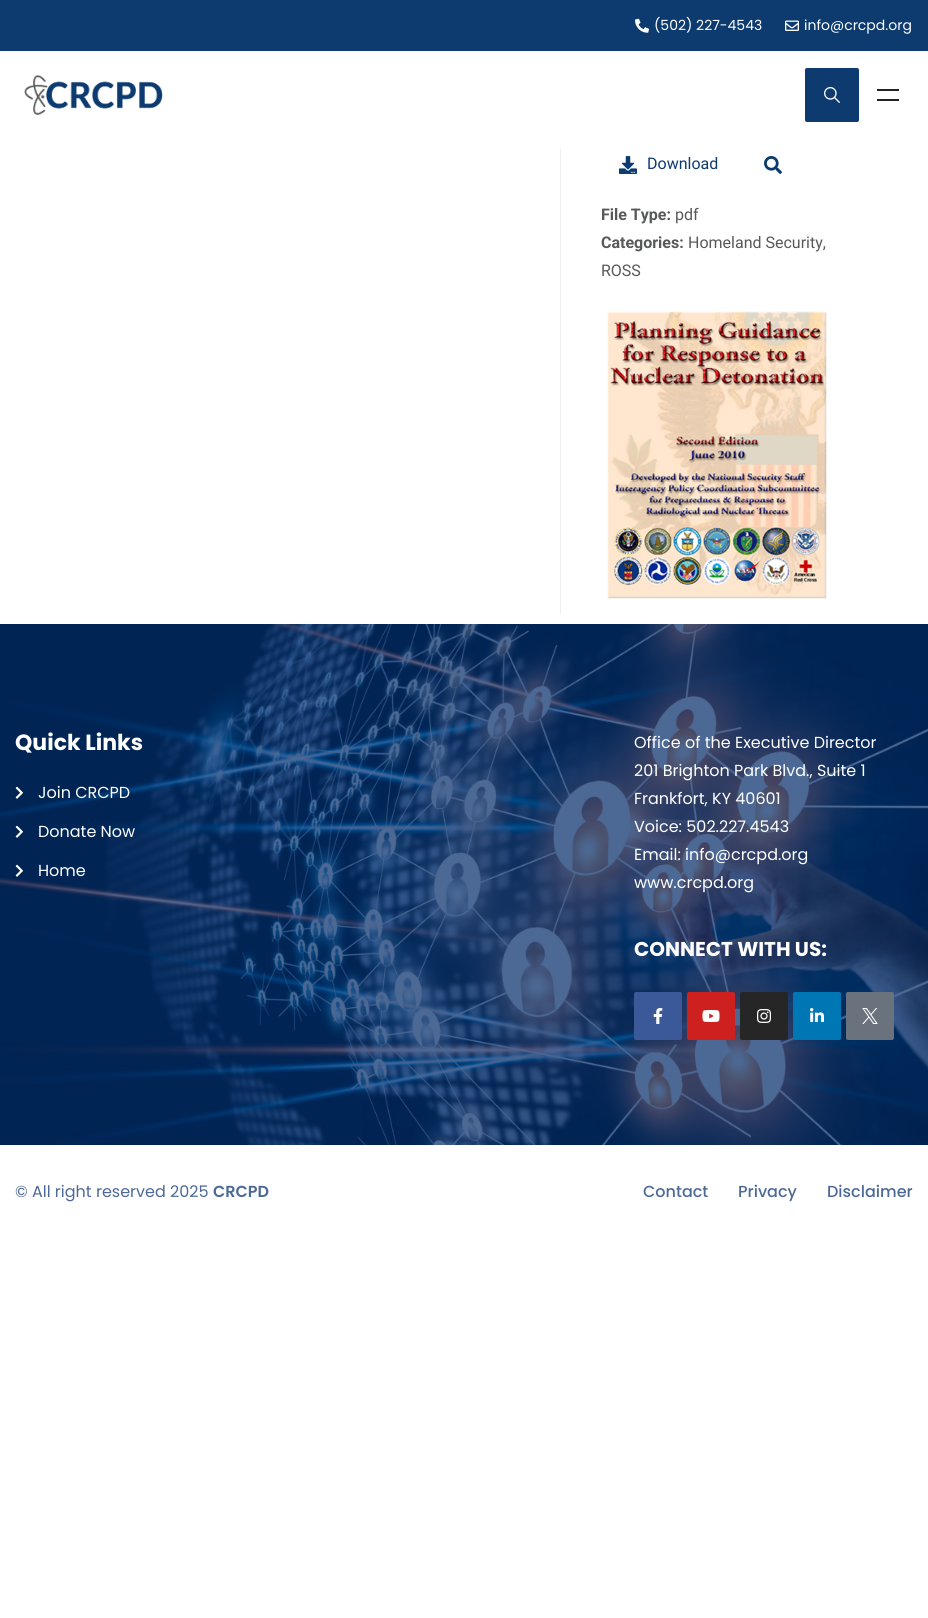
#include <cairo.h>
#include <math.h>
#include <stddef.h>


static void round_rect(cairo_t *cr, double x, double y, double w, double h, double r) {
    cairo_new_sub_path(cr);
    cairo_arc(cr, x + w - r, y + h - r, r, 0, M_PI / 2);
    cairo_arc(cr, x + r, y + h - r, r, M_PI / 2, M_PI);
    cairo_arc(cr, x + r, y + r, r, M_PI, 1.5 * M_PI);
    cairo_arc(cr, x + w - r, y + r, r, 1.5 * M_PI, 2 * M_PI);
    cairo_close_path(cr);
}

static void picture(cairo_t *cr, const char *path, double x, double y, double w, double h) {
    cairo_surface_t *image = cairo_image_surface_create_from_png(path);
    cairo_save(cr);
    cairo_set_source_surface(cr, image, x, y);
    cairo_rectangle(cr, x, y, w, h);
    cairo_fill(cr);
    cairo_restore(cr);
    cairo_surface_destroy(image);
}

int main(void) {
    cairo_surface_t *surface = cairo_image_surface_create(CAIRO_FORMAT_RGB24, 928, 1618);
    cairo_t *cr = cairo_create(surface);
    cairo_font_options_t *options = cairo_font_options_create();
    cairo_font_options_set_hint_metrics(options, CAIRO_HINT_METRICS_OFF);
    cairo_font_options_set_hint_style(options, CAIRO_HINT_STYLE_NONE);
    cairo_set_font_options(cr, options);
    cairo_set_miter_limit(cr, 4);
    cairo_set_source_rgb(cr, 1, 1, 1);
    cairo_paint(cr);
    cairo_set_source_rgb(cr, 0.051, 0.231, 0.435);
    cairo_rectangle(cr, 0, 0, 928, 51);
    cairo_fill(cr);
    picture(cr, "img1.png", 635, 18, 14, 15);
    cairo_select_font_face(cr, "Poppins", CAIRO_FONT_SLANT_NORMAL, CAIRO_FONT_WEIGHT_NORMAL);
    cairo_set_font_size(cr, 14);
    cairo_set_source_rgb(cr, 1, 1, 1);
    cairo_move_to(cr, 654, 30);
    cairo_show_text(cr, "(502) 227-4543");
    picture(cr, "img2.png", 785, 20, 14, 11);
    cairo_move_to(cr, 804, 30);
    cairo_show_text(cr, "info@crcpd.org");
    picture(cr, "img3.png", 24, 75, 139, 40);
    cairo_set_source_rgb(cr, 0.051, 0.231, 0.435);
    round_rect(cr, 805, 68, 54, 54, 2);
    cairo_fill(cr);
    picture(cr, "img4.png", 824, 87, 16, 16);
    cairo_set_source_rgb(cr, 0.133, 0.133, 0.133);
    cairo_rectangle(cr, 877, 89, 22, 2);
    cairo_fill(cr);
    cairo_rectangle(cr, 877, 99, 22, 2);
    cairo_fill(cr);
    cairo_set_source_rgb(cr, 0.933, 0.933, 0.933);
    cairo_rectangle(cr, 560, 149, 1, 465);
    cairo_fill(cr);
    picture(cr, "img5.png", 619, 156, 18, 18);
    cairo_select_font_face(cr, "Roboto", CAIRO_FONT_SLANT_NORMAL, CAIRO_FONT_WEIGHT_NORMAL);
    cairo_set_font_size(cr, 16);
    cairo_set_source_rgb(cr, 0.051, 0.231, 0.435);
    cairo_move_to(cr, 647, 169);
    cairo_show_text(cr, "Download");
    picture(cr, "img6.png", 764, 156, 18, 18);
    cairo_select_font_face(cr, "Roboto", CAIRO_FONT_SLANT_NORMAL, CAIRO_FONT_WEIGHT_BOLD);
    cairo_set_source_rgb(cr, 0.341, 0.345, 0.349);
    cairo_move_to(cr, 601, 220);
    cairo_show_text(cr, "File Type:");
    cairo_select_font_face(cr, "Roboto", CAIRO_FONT_SLANT_NORMAL, CAIRO_FONT_WEIGHT_NORMAL);
    cairo_move_to(cr, 675, 220);
    cairo_show_text(cr, "pdf");
    cairo_select_font_face(cr, "Roboto", CAIRO_FONT_SLANT_NORMAL, CAIRO_FONT_WEIGHT_BOLD);
    cairo_move_to(cr, 601, 248);
    cairo_show_text(cr, "Categories:");
    cairo_select_font_face(cr, "Roboto", CAIRO_FONT_SLANT_NORMAL, CAIRO_FONT_WEIGHT_NORMAL);
    cairo_move_to(cr, 688, 248);
    cairo_show_text(cr, "Homeland Security,");
    cairo_move_to(cr, 601, 276);
    cairo_show_text(cr, "ROSS");
    picture(cr, "img7.png", 607, 311, 220, 288);
    picture(cr, "img8.png", 0, 624, 928, 521);
    cairo_select_font_face(cr, "Poppins", CAIRO_FONT_SLANT_NORMAL, CAIRO_FONT_WEIGHT_BOLD);
    cairo_set_font_size(cr, 22);
    cairo_set_source_rgb(cr, 1, 1, 1);
    cairo_move_to(cr, 15, 750);
    cairo_show_text(cr, "Quick Links");
    picture(cr, "img9.png", 15, 786, 8, 13);
    cairo_select_font_face(cr, "Poppins", CAIRO_FONT_SLANT_NORMAL, CAIRO_FONT_WEIGHT_NORMAL);
    cairo_set_font_size(cr, 16);
    cairo_move_to(cr, 38, 798);
    cairo_show_text(cr, "Join CRCPD");
    picture(cr, "img10.png", 15, 825, 8, 13);
    cairo_move_to(cr, 38, 837);
    cairo_show_text(cr, "Donate Now");
    picture(cr, "img9.png", 15, 864, 8, 13);
    cairo_move_to(cr, 38, 876);
    cairo_show_text(cr, "Home");
    cairo_move_to(cr, 634, 748);
    cairo_show_text(cr, "Office of the Executive Director");
    cairo_move_to(cr, 634, 776);
    cairo_show_text(cr, "201 Brighton Park Blvd., Suite 1");
    cairo_move_to(cr, 634, 804);
    cairo_show_text(cr, "Frankfort, KY 40601");
    cairo_move_to(cr, 634, 832);
    cairo_show_text(cr, "Voice: 502.227.4543");
    cairo_move_to(cr, 634, 860);
    cairo_show_text(cr, "Email: info@crcpd.org");
    cairo_move_to(cr, 634, 888);
    cairo_show_text(cr, "www.crcpd.org");
    cairo_select_font_face(cr, "Poppins", CAIRO_FONT_SLANT_NORMAL, CAIRO_FONT_WEIGHT_BOLD);
    cairo_set_font_size(cr, 20);
    cairo_move_to(cr, 634, 956);
    cairo_show_text(cr, "CONNECT WITH US:");
    cairo_set_source_rgb(cr, 0.231, 0.349, 0.596);
    round_rect(cr, 634, 992, 48, 48, 2);
    cairo_fill(cr);
    picture(cr, "img11.png", 653, 1008, 10, 16);
    cairo_set_source_rgb(cr, 0.804, 0.125, 0.122);
    round_rect(cr, 687, 992, 48, 48, 2);
    cairo_fill(cr);
    picture(cr, "img12.png", 702, 1010, 18, 12);
    cairo_set_source_rgb(cr, 0.149, 0.149, 0.149);
    round_rect(cr, 740, 992, 48, 48, 2);
    cairo_fill(cr);
    picture(cr, "img13.png", 757, 1009, 14, 14);
    cairo_set_source_rgb(cr, 0, 0.467, 0.71);
    round_rect(cr, 793, 992, 48, 48, 2);
    cairo_fill(cr);
    picture(cr, "img14.png", 810, 1008, 14, 14);
    cairo_set_source_rgb(cr, 0.412, 0.447, 0.49);
    round_rect(cr, 846, 992, 48, 48, 2);
    cairo_fill(cr);
    picture(cr, "img15.png", 862, 1008, 16, 16);
    cairo_select_font_face(cr, "Poppins", CAIRO_FONT_SLANT_NORMAL, CAIRO_FONT_WEIGHT_NORMAL);
    cairo_set_font_size(cr, 16);
    cairo_set_source_rgb(cr, 0.302, 0.412, 0.584);
    cairo_move_to(cr, 15, 1197);
    cairo_show_text(cr, "© All right reserved 2025");
    cairo_select_font_face(cr, "Poppins SemiBold", CAIRO_FONT_SLANT_NORMAL, CAIRO_FONT_WEIGHT_NORMAL);
    cairo_move_to(cr, 213, 1197);
    cairo_show_text(cr, "CRCPD");
    cairo_select_font_face(cr, "Poppins Medium", CAIRO_FONT_SLANT_NORMAL, CAIRO_FONT_WEIGHT_NORMAL);
    cairo_move_to(cr, 643, 1197);
    cairo_show_text(cr, "Contact");
    cairo_move_to(cr, 738, 1197);
    cairo_show_text(cr, "Privacy");
    cairo_move_to(cr, 827, 1197);
    cairo_show_text(cr, "Disclaimer");
    cairo_surface_write_to_png(surface, "page.png");
    cairo_font_options_destroy(options);
    cairo_destroy(cr);
    cairo_surface_destroy(surface);
    return 0;
}
